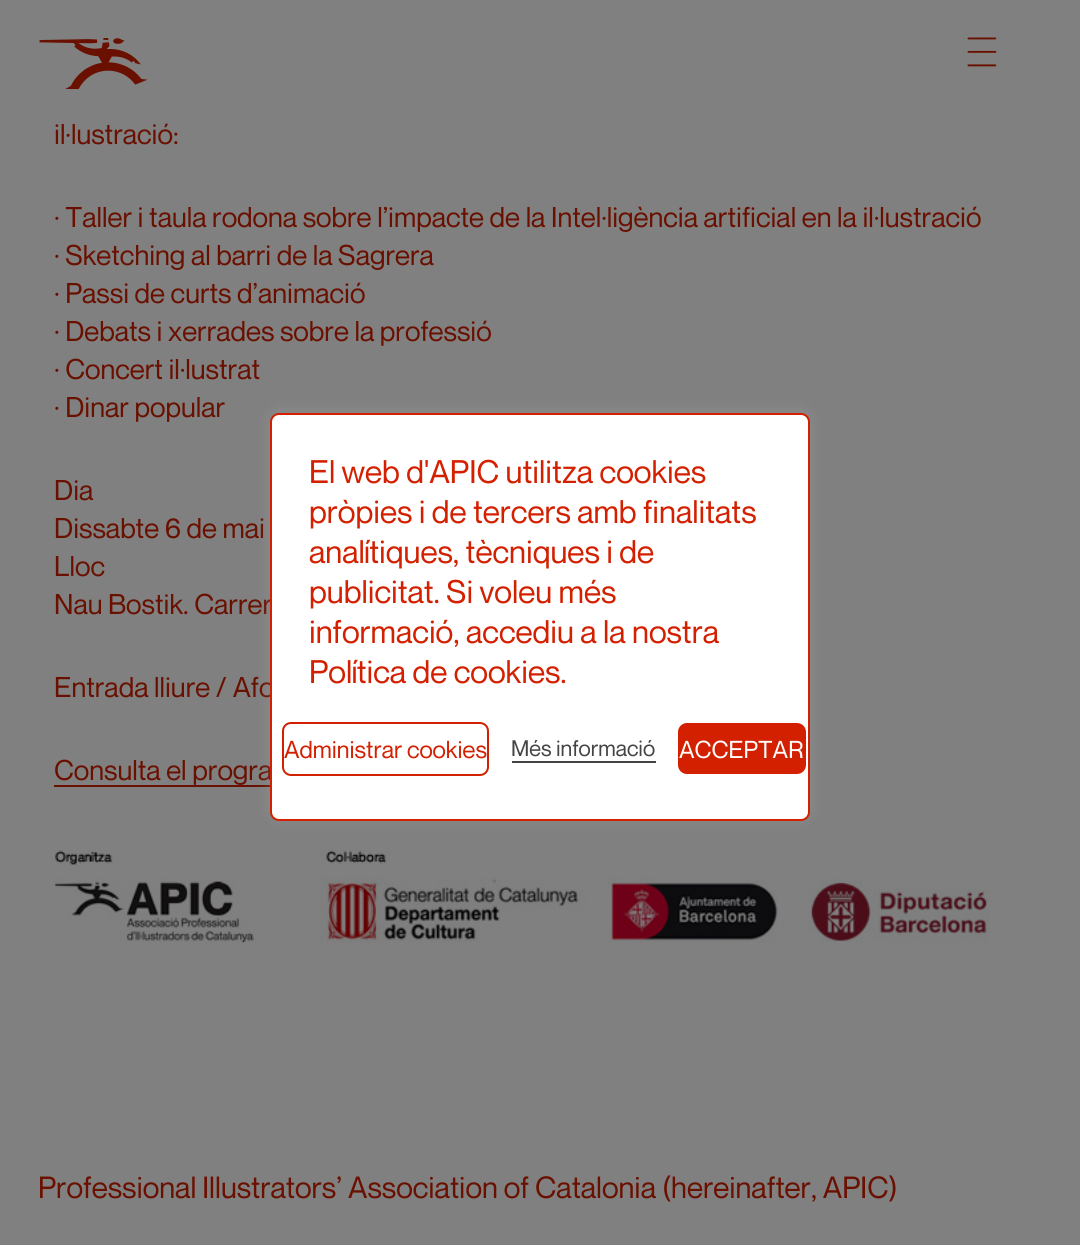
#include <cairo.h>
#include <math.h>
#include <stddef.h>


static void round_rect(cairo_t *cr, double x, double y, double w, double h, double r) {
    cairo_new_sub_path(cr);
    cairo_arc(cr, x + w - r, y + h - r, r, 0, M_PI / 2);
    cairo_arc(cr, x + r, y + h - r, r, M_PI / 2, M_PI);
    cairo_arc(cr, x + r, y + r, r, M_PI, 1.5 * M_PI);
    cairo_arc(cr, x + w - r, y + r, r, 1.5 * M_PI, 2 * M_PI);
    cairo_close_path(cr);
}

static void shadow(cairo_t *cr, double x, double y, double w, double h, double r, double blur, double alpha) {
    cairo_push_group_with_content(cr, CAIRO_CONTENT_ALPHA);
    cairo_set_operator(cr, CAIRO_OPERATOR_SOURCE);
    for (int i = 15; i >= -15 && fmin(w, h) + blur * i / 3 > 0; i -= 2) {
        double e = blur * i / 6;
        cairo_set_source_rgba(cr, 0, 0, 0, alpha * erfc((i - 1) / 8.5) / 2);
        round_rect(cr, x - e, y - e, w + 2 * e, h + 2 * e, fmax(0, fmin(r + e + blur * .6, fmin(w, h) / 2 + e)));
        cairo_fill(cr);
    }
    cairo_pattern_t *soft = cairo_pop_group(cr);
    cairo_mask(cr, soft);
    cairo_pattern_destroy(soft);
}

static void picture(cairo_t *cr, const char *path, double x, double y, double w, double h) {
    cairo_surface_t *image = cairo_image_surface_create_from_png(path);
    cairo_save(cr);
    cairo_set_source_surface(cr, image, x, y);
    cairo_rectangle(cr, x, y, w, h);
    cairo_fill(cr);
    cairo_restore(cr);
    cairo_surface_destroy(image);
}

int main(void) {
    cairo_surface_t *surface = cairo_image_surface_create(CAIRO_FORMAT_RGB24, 1080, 1245);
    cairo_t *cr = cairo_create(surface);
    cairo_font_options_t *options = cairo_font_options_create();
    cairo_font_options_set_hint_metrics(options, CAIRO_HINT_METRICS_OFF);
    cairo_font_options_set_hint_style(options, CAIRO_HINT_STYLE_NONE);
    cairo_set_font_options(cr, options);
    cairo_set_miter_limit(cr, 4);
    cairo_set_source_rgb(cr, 0.502, 0.502, 0.502);
    cairo_paint(cr);
    picture(cr, "img1.png", 39, 38, 109, 51);
    picture(cr, "img2.png", 967, 37, 30, 30);
    cairo_select_font_face(cr, "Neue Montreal", CAIRO_FONT_SLANT_NORMAL, CAIRO_FONT_WEIGHT_NORMAL);
    cairo_set_font_size(cr, 28);
    cairo_set_source_rgb(cr, 0.416, 0.063, 0);
    cairo_move_to(cr, 54, 144);
    cairo_show_text(cr, "il·lustració:");
    cairo_move_to(cr, 54, 227);
    cairo_show_text(cr, "· Taller i taula rodona sobre l’impacte de la Intel·ligència artificial en la il·lustració");
    cairo_move_to(cr, 54, 265);
    cairo_show_text(cr, "· Sketching al barri de la Sagrera");
    cairo_move_to(cr, 54, 303);
    cairo_show_text(cr, "· Passi de curts d’animació");
    cairo_move_to(cr, 54, 341);
    cairo_show_text(cr, "· Debats i xerrades sobre la professió");
    cairo_move_to(cr, 54, 379);
    cairo_show_text(cr, "· Concert il·lustrat");
    cairo_move_to(cr, 54, 417);
    cairo_show_text(cr, "· Dinar popular");
    cairo_move_to(cr, 54, 500);
    cairo_show_text(cr, "Dia");
    cairo_move_to(cr, 54, 538);
    cairo_show_text(cr, "Dissabte 6 de mai");
    cairo_move_to(cr, 54, 576);
    cairo_show_text(cr, "Lloc");
    cairo_move_to(cr, 54, 614);
    cairo_show_text(cr, "Nau Bostik. Carrer");
    cairo_move_to(cr, 54, 697);
    cairo_show_text(cr, "Entrada lliure / Afo");
    cairo_move_to(cr, 54, 780);
    cairo_show_text(cr, "Consulta el progra");
    cairo_rectangle(cr, 54, 785, 216, 2);
    cairo_fill(cr);
    picture(cr, "img3.png", 55, 850, 935, 93);
    cairo_set_font_size(cr, 30);
    cairo_move_to(cr, 38, 1198);
    cairo_show_text(cr, "Professional Illustrators’ Association of Catalonia (hereinafter, APIC)");
    cairo_set_source_rgb(cr, 0.675, 0.671, 0.671);
    shadow(cr, 270, 411, 540, 408, 9, 7.5, 0.3);
    cairo_set_source_rgb(cr, 1, 1, 1);
    round_rect(cr, 271, 414, 538, 406, 8);
    cairo_fill_preserve(cr);
    cairo_set_source_rgb(cr, 0.827, 0.125, 0);
    cairo_stroke(cr);
    cairo_set_font_size(cr, 32);
    cairo_move_to(cr, 309, 483);
    cairo_show_text(cr, "El web d'APIC utilitza cookies");
    cairo_move_to(cr, 309, 523);
    cairo_show_text(cr, "pròpies i de tercers amb finalitats");
    cairo_move_to(cr, 309, 563);
    cairo_show_text(cr, "analítiques, tècniques i de");
    cairo_move_to(cr, 309, 603);
    cairo_show_text(cr, "publicitat. Si voleu més");
    cairo_move_to(cr, 309, 643);
    cairo_show_text(cr, "informació, accediu a la nostra");
    cairo_move_to(cr, 309, 683);
    cairo_show_text(cr, "Política de cookies.");
    round_rect(cr, 283, 723, 205, 52, 8);
    cairo_stroke(cr);
    cairo_set_font_size(cr, 24);
    cairo_move_to(cr, 284, 758);
    cairo_show_text(cr, "Administrar cookies");
    cairo_set_font_size(cr, 22);
    cairo_set_source_rgb(cr, 0.267, 0.267, 0.267);
    cairo_move_to(cr, 511, 756);
    cairo_show_text(cr, "Més informació");
    cairo_rectangle(cr, 512, 761, 144, 2);
    cairo_fill(cr);
    cairo_set_source_rgb(cr, 0.827, 0.125, 0);
    round_rect(cr, 679, 724, 126, 49, 8);
    cairo_fill_preserve(cr);
    cairo_stroke(cr);
    cairo_set_font_size(cr, 24);
    cairo_set_source_rgb(cr, 1, 1, 1);
    cairo_move_to(cr, 679, 758);
    cairo_show_text(cr, "ACCEPTAR");
    cairo_surface_write_to_png(surface, "page.png");
    cairo_font_options_destroy(options);
    cairo_destroy(cr);
    cairo_surface_destroy(surface);
    return 0;
}
